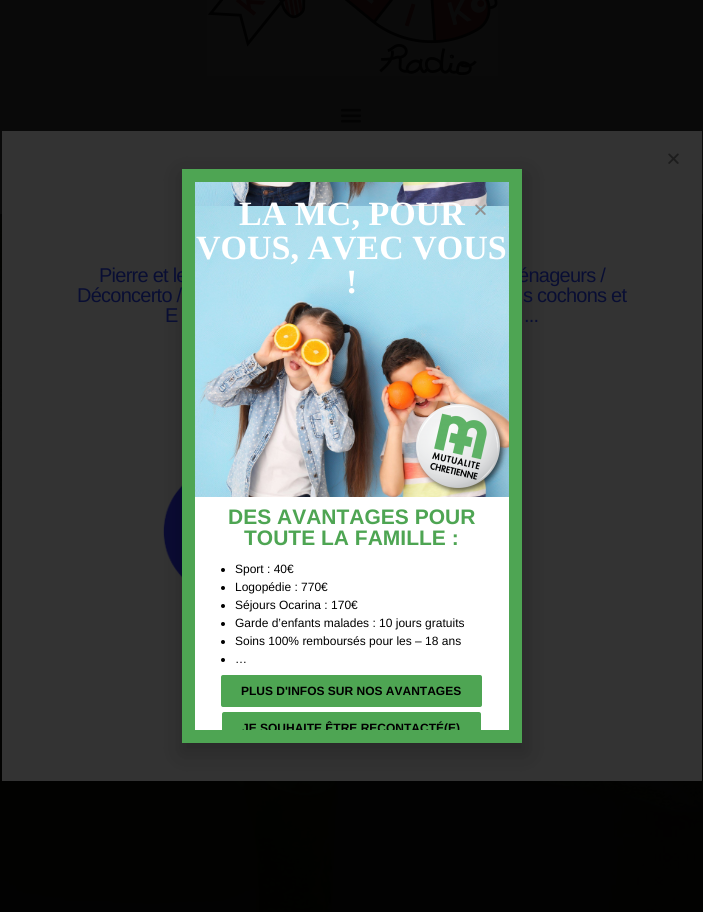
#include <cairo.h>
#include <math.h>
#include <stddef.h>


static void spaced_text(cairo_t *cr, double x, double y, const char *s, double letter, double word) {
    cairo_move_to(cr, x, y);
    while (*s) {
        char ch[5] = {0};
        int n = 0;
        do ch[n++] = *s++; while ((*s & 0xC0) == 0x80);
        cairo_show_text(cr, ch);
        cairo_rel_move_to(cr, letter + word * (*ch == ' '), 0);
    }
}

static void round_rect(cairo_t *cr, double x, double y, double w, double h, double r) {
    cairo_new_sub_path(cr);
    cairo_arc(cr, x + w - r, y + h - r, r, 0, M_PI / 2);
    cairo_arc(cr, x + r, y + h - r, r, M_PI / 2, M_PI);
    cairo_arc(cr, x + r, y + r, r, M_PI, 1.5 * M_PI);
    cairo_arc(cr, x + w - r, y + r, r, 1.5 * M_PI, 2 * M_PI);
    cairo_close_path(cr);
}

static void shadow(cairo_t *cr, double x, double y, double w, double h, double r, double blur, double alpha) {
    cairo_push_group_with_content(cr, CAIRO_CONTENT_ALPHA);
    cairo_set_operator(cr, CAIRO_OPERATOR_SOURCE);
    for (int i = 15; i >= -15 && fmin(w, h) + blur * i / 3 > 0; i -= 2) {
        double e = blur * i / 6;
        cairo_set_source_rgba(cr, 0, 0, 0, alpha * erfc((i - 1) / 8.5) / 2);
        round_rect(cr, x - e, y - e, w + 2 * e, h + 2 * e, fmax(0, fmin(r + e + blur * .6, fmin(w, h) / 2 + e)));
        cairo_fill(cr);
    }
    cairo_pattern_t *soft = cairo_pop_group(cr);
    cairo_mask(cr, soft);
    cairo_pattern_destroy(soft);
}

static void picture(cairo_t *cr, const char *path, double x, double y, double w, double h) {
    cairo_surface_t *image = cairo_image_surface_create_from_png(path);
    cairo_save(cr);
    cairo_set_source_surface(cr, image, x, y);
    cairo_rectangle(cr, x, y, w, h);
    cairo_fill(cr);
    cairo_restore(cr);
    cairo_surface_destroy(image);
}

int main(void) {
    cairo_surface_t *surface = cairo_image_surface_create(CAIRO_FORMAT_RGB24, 703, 912);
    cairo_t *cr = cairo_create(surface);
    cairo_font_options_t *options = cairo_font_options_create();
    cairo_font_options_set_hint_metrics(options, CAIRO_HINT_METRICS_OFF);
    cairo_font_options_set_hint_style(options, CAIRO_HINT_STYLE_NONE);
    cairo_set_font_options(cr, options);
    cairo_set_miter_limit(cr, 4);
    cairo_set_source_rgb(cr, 0.039, 0.039, 0.039);
    cairo_paint(cr);
    picture(cr, "img1.png", 207, 0, 291, 76);
    picture(cr, "img2.png", 340, 108, 22, 15);
    picture(cr, "img3.png", 0, 214, 703, 698);
    cairo_set_source_rgb(cr, 0.2, 0.2, 0.2);
    cairo_rectangle(cr, 2, 131, 700, 650);
    cairo_fill(cr);
    picture(cr, "img8.png", 163, 485, 19, 93);
    cairo_set_source_rgb(cr, 0, 0, 0);
    shadow(cr, 181, 174, 346, 580, 0, 11.5, 0.2);
    cairo_set_source_rgb(cr, 1, 1, 1);
    cairo_rectangle(cr, 195, 497, 314, 233);
    cairo_fill(cr);
    cairo_select_font_face(cr, "Liberation Sans", CAIRO_FONT_SLANT_NORMAL, CAIRO_FONT_WEIGHT_NORMAL);
    cairo_set_font_size(cr, 20);
    cairo_set_source_rgb(cr, 0.039, 0.055, 0.2);
    spaced_text(cr, 99, 282, "Pierre et le", -0.75, 0);
    spaced_text(cr, 518, 282, "énageurs /", -0.75, 0);
    cairo_rectangle(cr, 188.5, 175.5, 327, 561);
    cairo_set_source_rgb(cr, 0.306, 0.647, 0.325);
    cairo_set_line_width(cr, 13);
    cairo_stroke(cr);
    picture(cr, "img4.png", 195, 182, 314, 315);
    cairo_select_font_face(cr, "Liberation Serif", CAIRO_FONT_SLANT_NORMAL, CAIRO_FONT_WEIGHT_BOLD);
    cairo_set_font_size(cr, 34);
    cairo_set_source_rgb(cr, 1, 1, 1);
    cairo_move_to(cr, 239, 225);
    cairo_show_text(cr, "LA MC, POUR");
    cairo_move_to(cr, 196, 259);
    cairo_show_text(cr, "VOUS, AVEC VOUS");
    cairo_move_to(cr, 346, 293);
    cairo_show_text(cr, "!");
    picture(cr, "img5.png", 414, 402, 93, 93);
    cairo_select_font_face(cr, "Liberation Sans", CAIRO_FONT_SLANT_NORMAL, CAIRO_FONT_WEIGHT_BOLD);
    cairo_set_font_size(cr, 21);
    cairo_set_source_rgb(cr, 0.306, 0.647, 0.325);
    cairo_move_to(cr, 228, 524);
    cairo_show_text(cr, "DES AVANTAGES POUR");
    cairo_move_to(cr, 244, 545);
    cairo_show_text(cr, "TOUTE LA FAMILLE :");
    cairo_set_source_rgb(cr, 0, 0, 0);
    cairo_new_path(cr);
    cairo_arc(cr, 223, 570, 2, 0, 2 * M_PI);
    cairo_fill(cr);
    cairo_select_font_face(cr, "Liberation Sans", CAIRO_FONT_SLANT_NORMAL, CAIRO_FONT_WEIGHT_NORMAL);
    cairo_set_font_size(cr, 12);
    cairo_move_to(cr, 235, 573);
    cairo_show_text(cr, "Sport : 40€");
    cairo_new_path(cr);
    cairo_arc(cr, 223, 588, 2, 0, 2 * M_PI);
    cairo_fill(cr);
    cairo_move_to(cr, 235, 591);
    cairo_show_text(cr, "Logopédie : 770€");
    cairo_new_path(cr);
    cairo_arc(cr, 223, 606, 2, 0, 2 * M_PI);
    cairo_fill(cr);
    cairo_move_to(cr, 235, 609);
    cairo_show_text(cr, "Séjours Ocarina : 170€");
    cairo_new_path(cr);
    cairo_arc(cr, 223, 624, 2, 0, 2 * M_PI);
    cairo_fill(cr);
    cairo_move_to(cr, 235, 627);
    cairo_show_text(cr, "Garde d’enfants malades : 10 jours gratuits");
    cairo_new_path(cr);
    cairo_arc(cr, 223, 642, 2, 0, 2 * M_PI);
    cairo_fill(cr);
    cairo_move_to(cr, 235, 645);
    cairo_show_text(cr, "Soins 100% remboursés pour les – 18 ans");
    cairo_new_path(cr);
    cairo_arc(cr, 223, 660, 2, 0, 2 * M_PI);
    cairo_fill(cr);
    cairo_move_to(cr, 235, 663);
    cairo_show_text(cr, "…");
    cairo_set_source_rgb(cr, 0.306, 0.647, 0.325);
    round_rect(cr, 221, 675, 261, 32, 2);
    cairo_fill(cr);
    cairo_select_font_face(cr, "Liberation Sans", CAIRO_FONT_SLANT_NORMAL, CAIRO_FONT_WEIGHT_BOLD);
    cairo_set_source_rgb(cr, 0, 0, 0);
    cairo_move_to(cr, 241, 695);
    cairo_show_text(cr, "PLUS D'INFOS SUR NOS AVANTAGES");
    cairo_set_source_rgb(cr, 0.306, 0.647, 0.325);
    cairo_new_path(cr);
    cairo_move_to(cr, 224, 712);
    cairo_line_to(cr, 479, 712);
    cairo_curve_to(cr, 480, 712, 481, 713, 481, 714);
    cairo_line_to(cr, 481, 730);
    cairo_line_to(cr, 222, 730);
    cairo_line_to(cr, 222, 714);
    cairo_curve_to(cr, 222, 713, 223, 712, 224, 712);
    cairo_close_path(cr);
    cairo_fill(cr);
    cairo_save(cr);
    cairo_rectangle(cr, 195, 182, 314, 548);
    cairo_clip(cr);
    cairo_set_source_rgb(cr, 0, 0, 0);
    cairo_move_to(cr, 242, 732);
    cairo_show_text(cr, "JE SOUHAITE ÊTRE RECONTACTÉ(E)");
    cairo_restore(cr);
    picture(cr, "img6.png", 475, 204, 11, 11);
    picture(cr, "img7.png", 668, 153, 11, 11);
    cairo_select_font_face(cr, "Liberation Sans", CAIRO_FONT_SLANT_NORMAL, CAIRO_FONT_WEIGHT_NORMAL);
    cairo_set_font_size(cr, 20);
    cairo_set_source_rgb(cr, 0.039, 0.055, 0.2);
    spaced_text(cr, 77, 302, "Déconcerto /", -0.75, 0);
    spaced_text(cr, 523, 302, "s cochons et", -0.75, 0);
    spaced_text(cr, 165, 322, "E", -0.75, 0);
    spaced_text(cr, 524, 322, "...", -0.75, 0);
    cairo_surface_write_to_png(surface, "page.png");
    cairo_font_options_destroy(options);
    cairo_destroy(cr);
    cairo_surface_destroy(surface);
    return 0;
}
